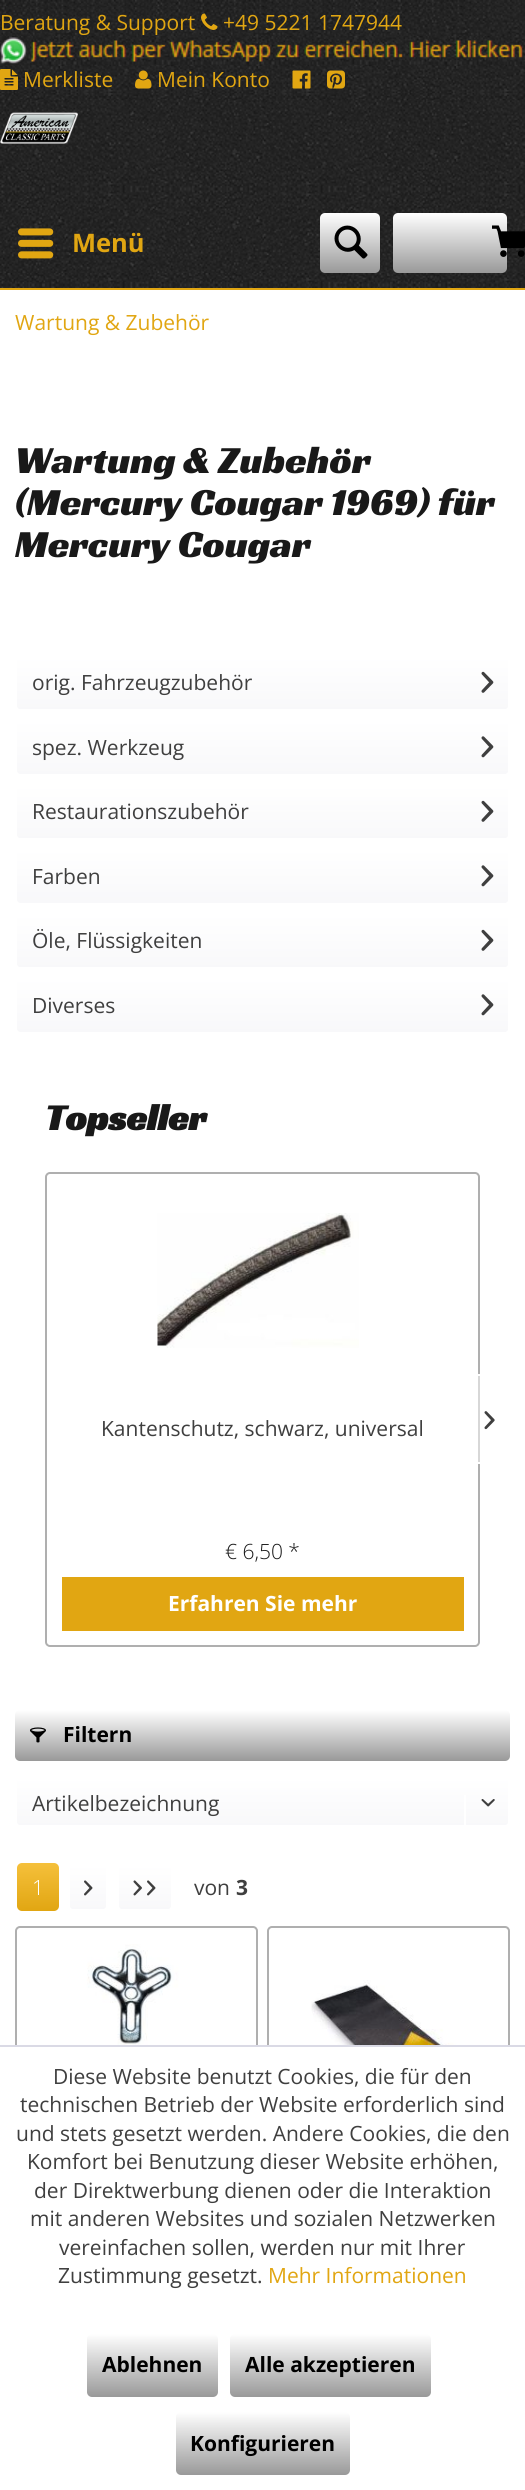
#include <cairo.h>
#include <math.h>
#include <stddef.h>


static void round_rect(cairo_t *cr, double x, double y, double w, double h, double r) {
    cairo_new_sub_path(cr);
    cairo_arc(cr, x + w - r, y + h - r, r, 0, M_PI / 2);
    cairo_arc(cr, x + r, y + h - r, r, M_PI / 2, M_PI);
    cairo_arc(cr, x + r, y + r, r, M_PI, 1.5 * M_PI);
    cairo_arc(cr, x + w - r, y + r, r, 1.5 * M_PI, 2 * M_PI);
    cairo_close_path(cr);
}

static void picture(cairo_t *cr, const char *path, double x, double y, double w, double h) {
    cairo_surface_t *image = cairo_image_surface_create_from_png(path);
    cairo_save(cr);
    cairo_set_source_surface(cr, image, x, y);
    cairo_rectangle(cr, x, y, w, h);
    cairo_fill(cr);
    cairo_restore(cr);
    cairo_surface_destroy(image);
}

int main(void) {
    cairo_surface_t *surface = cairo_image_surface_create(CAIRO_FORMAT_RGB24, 525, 2490);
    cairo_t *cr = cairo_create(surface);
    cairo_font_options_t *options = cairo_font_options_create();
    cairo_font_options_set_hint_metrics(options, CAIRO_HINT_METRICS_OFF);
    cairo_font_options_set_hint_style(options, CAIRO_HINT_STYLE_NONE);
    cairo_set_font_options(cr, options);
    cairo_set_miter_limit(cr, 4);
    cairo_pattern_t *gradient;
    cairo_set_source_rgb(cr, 1, 1, 1);
    cairo_paint(cr);
    picture(cr, "img1.png", 0, 0, 525, 288);
    cairo_set_source_rgb(cr, 0.882, 0.651, 0.071);
    cairo_rectangle(cr, 0, 288, 525, 2);
    cairo_fill(cr);
    picture(cr, "img2.png", 3, 0, 397, 1);
    picture(cr, "img3.png", 0, 7, 525, 86);
    cairo_select_font_face(cr, "Open Sans", CAIRO_FONT_SLANT_NORMAL, CAIRO_FONT_WEIGHT_NORMAL);
    cairo_set_font_size(cr, 21);
    cairo_move_to(cr, 0, 30);
    cairo_show_text(cr, "Beratung & Support");
    picture(cr, "img4.png", 201, 13, 17, 17);
    cairo_move_to(cr, 223, 30);
    cairo_show_text(cr, "+49 5221 1747944");
    picture(cr, "img5.png", 0, 36, 524, 29);
    picture(cr, "img6.png", 0, 69, 18, 21);
    cairo_move_to(cr, 23, 87);
    cairo_show_text(cr, "Merkliste");
    picture(cr, "img7.png", 135, 70, 17, 19);
    cairo_move_to(cr, 157, 87);
    cairo_show_text(cr, "Mein Konto");
    picture(cr, "img8.png", 292, 70, 19, 19);
    picture(cr, "img9.png", 327, 70, 18, 19);
    picture(cr, "img10.png", 0, 100, 525, 173);
    picture(cr, "img11.png", 0, 112, 78, 32);
    picture(cr, "img12.png", 18, 228, 36, 31);
    cairo_select_font_face(cr, "Open Sans", CAIRO_FONT_SLANT_NORMAL, CAIRO_FONT_WEIGHT_BOLD);
    cairo_set_font_size(cr, 25.5);
    cairo_move_to(cr, 72, 252);
    cairo_show_text(cr, "Menü");
    gradient = cairo_pattern_create_linear(350, 213, 350, 273);
    cairo_pattern_add_color_stop_rgba(gradient, 0, 1, 1, 1, 1);
    cairo_pattern_add_color_stop_rgba(gradient, 1, 0.6, 0.6, 0.6, 1);
    cairo_set_source(cr, gradient);
    cairo_pattern_destroy(gradient);
    round_rect(cr, 320, 213, 60, 60, 5);
    cairo_fill(cr);
    picture(cr, "img13.png", 334, 225, 34, 34);
    gradient = cairo_pattern_create_linear(450, 213, 450, 273);
    cairo_pattern_add_color_stop_rgba(gradient, 0, 1, 1, 1, 1);
    cairo_pattern_add_color_stop_rgba(gradient, 1, 0.6, 0.6, 0.6, 1);
    cairo_set_source(cr, gradient);
    cairo_pattern_destroy(gradient);
    round_rect(cr, 393, 213, 114, 60, 5);
    cairo_fill(cr);
    picture(cr, "img14.png", 492, 225, 33, 32);
    cairo_select_font_face(cr, "Open Sans", CAIRO_FONT_SLANT_NORMAL, CAIRO_FONT_WEIGHT_NORMAL);
    cairo_set_font_size(cr, 21);
    cairo_set_source_rgb(cr, 0.882, 0.651, 0.071);
    cairo_move_to(cr, 15, 330);
    cairo_show_text(cr, "Wartung & Zubehör");
    cairo_select_font_face(cr, "Racing Sans One", CAIRO_FONT_SLANT_NORMAL, CAIRO_FONT_WEIGHT_NORMAL);
    cairo_set_font_size(cr, 39);
    cairo_set_source_rgb(cr, 0.098, 0.098, 0.098);
    cairo_move_to(cr, 15, 473);
    cairo_show_text(cr, "Wartung & Zubehör");
    cairo_move_to(cr, 15, 515);
    cairo_show_text(cr, "(Mercury Cougar 1969) für");
    cairo_move_to(cr, 15, 557);
    cairo_show_text(cr, "Mercury Cougar");
    gradient = cairo_pattern_create_linear(263, 656, 263, 710);
    cairo_pattern_add_color_stop_rgba(gradient, 0, 1, 1, 1, 1);
    cairo_pattern_add_color_stop_rgba(gradient, 1, 0.973, 0.973, 0.98, 1);
    cairo_set_source(cr, gradient);
    cairo_pattern_destroy(gradient);
    round_rect(cr, 17, 656, 492, 54, 3);
    cairo_fill(cr);
    round_rect(cr, 16, 655, 493, 55, 4);
    cairo_set_source_rgb(cr, 1, 1, 1);
    cairo_stroke(cr);
    cairo_select_font_face(cr, "Open Sans", CAIRO_FONT_SLANT_NORMAL, CAIRO_FONT_WEIGHT_NORMAL);
    cairo_set_font_size(cr, 21);
    cairo_set_source_rgb(cr, 0.247, 0.247, 0.247);
    cairo_move_to(cr, 32, 690);
    cairo_show_text(cr, "orig. Fahrzeugzubehör");
    picture(cr, "img15.png", 481, 671, 13, 22);
    gradient = cairo_pattern_create_linear(263, 720, 263, 774);
    cairo_pattern_add_color_stop_rgba(gradient, 0, 1, 1, 1, 1);
    cairo_pattern_add_color_stop_rgba(gradient, 1, 0.973, 0.973, 0.98, 1);
    cairo_set_source(cr, gradient);
    cairo_pattern_destroy(gradient);
    round_rect(cr, 17, 720, 492, 54, 3);
    cairo_fill(cr);
    round_rect(cr, 16, 720, 493, 55, 4);
    cairo_set_source_rgb(cr, 1, 1, 1);
    cairo_stroke(cr);
    cairo_set_source_rgb(cr, 0.247, 0.247, 0.247);
    cairo_move_to(cr, 32, 755);
    cairo_show_text(cr, "spez. Werkzeug");
    picture(cr, "img16.png", 481, 736, 13, 22);
    gradient = cairo_pattern_create_linear(263, 785, 263, 839);
    cairo_pattern_add_color_stop_rgba(gradient, 0, 1, 1, 1, 1);
    cairo_pattern_add_color_stop_rgba(gradient, 1, 0.973, 0.973, 0.98, 1);
    cairo_set_source(cr, gradient);
    cairo_pattern_destroy(gradient);
    round_rect(cr, 17, 785, 492, 54, 3);
    cairo_fill(cr);
    round_rect(cr, 16, 784, 493, 55, 4);
    cairo_set_source_rgb(cr, 1, 1, 1);
    cairo_stroke(cr);
    cairo_set_source_rgb(cr, 0.247, 0.247, 0.247);
    cairo_move_to(cr, 32, 819);
    cairo_show_text(cr, "Restaurationszubehör");
    picture(cr, "img15.png", 481, 800, 13, 22);
    gradient = cairo_pattern_create_linear(263, 849, 263, 903);
    cairo_pattern_add_color_stop_rgba(gradient, 0, 1, 1, 1, 1);
    cairo_pattern_add_color_stop_rgba(gradient, 1, 0.973, 0.973, 0.98, 1);
    cairo_set_source(cr, gradient);
    cairo_pattern_destroy(gradient);
    round_rect(cr, 17, 849, 492, 54, 3);
    cairo_fill(cr);
    round_rect(cr, 16, 849, 493, 55, 4);
    cairo_set_source_rgb(cr, 1, 1, 1);
    cairo_stroke(cr);
    cairo_set_source_rgb(cr, 0.247, 0.247, 0.247);
    cairo_move_to(cr, 32, 884);
    cairo_show_text(cr, "Farben");
    picture(cr, "img16.png", 481, 865, 13, 22);
    gradient = cairo_pattern_create_linear(263, 914, 263, 968);
    cairo_pattern_add_color_stop_rgba(gradient, 0, 1, 1, 1, 1);
    cairo_pattern_add_color_stop_rgba(gradient, 1, 0.973, 0.973, 0.98, 1);
    cairo_set_source(cr, gradient);
    cairo_pattern_destroy(gradient);
    round_rect(cr, 17, 914, 492, 54, 3);
    cairo_fill(cr);
    round_rect(cr, 16, 913, 493, 55, 4);
    cairo_set_source_rgb(cr, 1, 1, 1);
    cairo_stroke(cr);
    cairo_set_source_rgb(cr, 0.247, 0.247, 0.247);
    cairo_move_to(cr, 32, 948);
    cairo_show_text(cr, "Öle, Flüssigkeiten");
    picture(cr, "img15.png", 481, 929, 13, 22);
    gradient = cairo_pattern_create_linear(263, 978, 263, 1032);
    cairo_pattern_add_color_stop_rgba(gradient, 0, 1, 1, 1, 1);
    cairo_pattern_add_color_stop_rgba(gradient, 1, 0.973, 0.973, 0.98, 1);
    cairo_set_source(cr, gradient);
    cairo_pattern_destroy(gradient);
    round_rect(cr, 17, 978, 492, 54, 3);
    cairo_fill(cr);
    round_rect(cr, 16, 978, 493, 55, 4);
    cairo_set_source_rgb(cr, 1, 1, 1);
    cairo_stroke(cr);
    cairo_set_source_rgb(cr, 0.247, 0.247, 0.247);
    cairo_move_to(cr, 32, 1013);
    cairo_show_text(cr, "Diverses");
    picture(cr, "img16.png", 481, 994, 13, 22);
    cairo_select_font_face(cr, "Racing Sans One", CAIRO_FONT_SLANT_NORMAL, CAIRO_FONT_WEIGHT_BOLD);
    cairo_set_font_size(cr, 37);
    cairo_set_source_rgb(cr, 0.098, 0.098, 0.098);
    cairo_move_to(cr, 45, 1130);
    cairo_show_text(cr, "Topseller");
    round_rect(cr, 46, 1173, 433, 473, 4);
    cairo_set_source_rgb(cr, 0.686, 0.686, 0.686);
    cairo_stroke(cr);
    picture(cr, "img17.png", 157, 1213, 202, 135);
    cairo_select_font_face(cr, "Open Sans", CAIRO_FONT_SLANT_NORMAL, CAIRO_FONT_WEIGHT_NORMAL);
    cairo_set_font_size(cr, 21);
    cairo_set_source_rgb(cr, 0.247, 0.247, 0.247);
    cairo_move_to(cr, 101, 1436);
    cairo_show_text(cr, "Kantenschutz, schwarz, universal");
    cairo_select_font_face(cr, "Open Sans Light", CAIRO_FONT_SLANT_NORMAL, CAIRO_FONT_WEIGHT_NORMAL);
    cairo_set_source_rgb(cr, 0.098, 0.098, 0.098);
    cairo_move_to(cr, 225, 1559);
    cairo_show_text(cr, "€ 6,50 *");
    cairo_set_source_rgb(cr, 0.882, 0.651, 0.071);
    cairo_rectangle(cr, 62, 1577, 402, 54);
    cairo_fill(cr);
    cairo_select_font_face(cr, "Open Sans", CAIRO_FONT_SLANT_NORMAL, CAIRO_FONT_WEIGHT_BOLD);
    cairo_set_source_rgb(cr, 1, 1, 1);
    cairo_move_to(cr, 168, 1611);
    cairo_show_text(cr, "Erfahren Sie mehr");
    cairo_set_source_rgba(cr, 1, 1, 1, 0.5);
    cairo_new_path(cr);
    cairo_move_to(cr, 472, 1375);
    cairo_line_to(cr, 511, 1375);
    cairo_line_to(cr, 511, 1463);
    cairo_line_to(cr, 472, 1463);
    cairo_curve_to(cr, 470, 1463, 468, 1461, 468, 1459);
    cairo_line_to(cr, 468, 1379);
    cairo_curve_to(cr, 468, 1377, 470, 1375, 472, 1375);
    cairo_close_path(cr);
    cairo_fill_preserve(cr);
    cairo_set_source_rgb(cr, 1, 1, 1);
    cairo_stroke(cr);
    picture(cr, "img18.png", 484, 1411, 11, 19);
    gradient = cairo_pattern_create_linear(263, 1710, 263, 1761);
    cairo_pattern_add_color_stop_rgba(gradient, 0, 1, 1, 1, 1);
    cairo_pattern_add_color_stop_rgba(gradient, 1, 0.6, 0.6, 0.6, 1);
    cairo_set_source(cr, gradient);
    cairo_pattern_destroy(gradient);
    round_rect(cr, 15, 1710, 495, 51, 5);
    cairo_fill(cr);
    picture(cr, "img19.png", 30, 1727, 16, 16);
    cairo_set_source_rgb(cr, 0, 0, 0);
    cairo_move_to(cr, 63, 1742);
    cairo_show_text(cr, "Filtern");
    gradient = cairo_pattern_create_linear(263, 1778, 263, 1826);
    cairo_pattern_add_color_stop_rgba(gradient, 0, 1, 1, 1, 1);
    cairo_pattern_add_color_stop_rgba(gradient, 1, 0.973, 0.973, 0.98, 1);
    cairo_set_source(cr, gradient);
    cairo_pattern_destroy(gradient);
    round_rect(cr, 17, 1778, 492, 48, 3);
    cairo_fill(cr);
    round_rect(cr, 16, 1777, 493, 49, 4);
    cairo_set_source_rgb(cr, 1, 1, 1);
    cairo_stroke(cr);
    cairo_select_font_face(cr, "Open Sans", CAIRO_FONT_SLANT_NORMAL, CAIRO_FONT_WEIGHT_NORMAL);
    cairo_set_source_rgb(cr, 0.247, 0.247, 0.247);
    cairo_move_to(cr, 32, 1811);
    cairo_show_text(cr, "Artikelbezeichnung");
    cairo_set_source_rgb(cr, 1, 1, 1);
    cairo_rectangle(cr, 464, 1795, 2, 32);
    cairo_fill(cr);
    picture(cr, "img20.png", 481, 1799, 14, 8);
    gradient = cairo_pattern_create_linear(37, 1863, 38, 1911);
    cairo_pattern_add_color_stop_rgba(gradient, 0, 0.961, 0.753, 0.231, 1);
    cairo_pattern_add_color_stop_rgba(gradient, 1, 0.882, 0.651, 0.071, 1);
    cairo_set_source(cr, gradient);
    cairo_pattern_destroy(gradient);
    round_rect(cr, 17, 1863, 42, 48, 5);
    cairo_fill(cr);
    cairo_select_font_face(cr, "Open Sans Light", CAIRO_FONT_SLANT_NORMAL, CAIRO_FONT_WEIGHT_NORMAL);
    cairo_set_source_rgb(cr, 1, 1, 1);
    cairo_move_to(cr, 32, 1895);
    cairo_show_text(cr, "1");
    gradient = cairo_pattern_create_linear(88, 1865, 88, 1910);
    cairo_pattern_add_color_stop_rgba(gradient, 0, 1, 1, 1, 1);
    cairo_pattern_add_color_stop_rgba(gradient, 1, 0.973, 0.973, 0.98, 1);
    cairo_set_source(cr, gradient);
    cairo_pattern_destroy(gradient);
    round_rect(cr, 69, 1865, 38, 45, 3);
    cairo_fill(cr);
    round_rect(cr, 69, 1864, 38, 46, 4);
    cairo_set_source_rgb(cr, 1, 1, 1);
    cairo_stroke(cr);
    picture(cr, "img21.png", 84, 1880, 9, 16);
    gradient = cairo_pattern_create_linear(145, 1865, 145, 1910);
    cairo_pattern_add_color_stop_rgba(gradient, 0, 1, 1, 1, 1);
    cairo_pattern_add_color_stop_rgba(gradient, 1, 0.973, 0.973, 0.98, 1);
    cairo_set_source(cr, gradient);
    cairo_pattern_destroy(gradient);
    round_rect(cr, 119, 1865, 52, 45, 3);
    cairo_fill(cr);
    round_rect(cr, 118, 1864, 54, 46, 4);
    cairo_set_source_rgb(cr, 1, 1, 1);
    cairo_stroke(cr);
    picture(cr, "img22.png", 133, 1880, 9, 16);
    picture(cr, "img21.png", 147, 1880, 9, 16);
    cairo_select_font_face(cr, "Open Sans", CAIRO_FONT_SLANT_NORMAL, CAIRO_FONT_WEIGHT_NORMAL);
    cairo_set_source_rgb(cr, 0.247, 0.247, 0.247);
    cairo_move_to(cr, 194, 1895);
    cairo_show_text(cr, "von");
    cairo_select_font_face(cr, "Open Sans", CAIRO_FONT_SLANT_NORMAL, CAIRO_FONT_WEIGHT_BOLD);
    cairo_move_to(cr, 236, 1895);
    cairo_show_text(cr, "3");
    round_rect(cr, 16, 1927, 241, 511, 4);
    cairo_set_source_rgb(cr, 0.686, 0.686, 0.686);
    cairo_stroke(cr);
    picture(cr, "img23.png", 71, 1944, 130, 101);
    round_rect(cr, 268, 1927, 241, 511, 4);
    cairo_stroke(cr);
    picture(cr, "img24.png", 311, 1980, 153, 65);
    cairo_set_source_rgb(cr, 1, 1, 1);
    cairo_rectangle(cr, 15, 2047, 495, 392);
    cairo_fill(cr);
    cairo_set_source_rgb(cr, 0.855, 0.855, 0.898);
    cairo_rectangle(cr, 0, 2045, 525, 2);
    cairo_fill(cr);
    cairo_select_font_face(cr, "Open Sans", CAIRO_FONT_SLANT_NORMAL, CAIRO_FONT_WEIGHT_NORMAL);
    cairo_set_source_rgb(cr, 0.247, 0.247, 0.247);
    cairo_move_to(cr, 53, 2084);
    cairo_show_text(cr, "Diese Website benutzt Cookies, die für den");
    cairo_move_to(cr, 20, 2112);
    cairo_show_text(cr, "technischen Betrieb der Website erforderlich sind");
    cairo_move_to(cr, 16, 2141);
    cairo_show_text(cr, "und stets gesetzt werden. Andere Cookies, die den");
    cairo_move_to(cr, 27, 2169);
    cairo_show_text(cr, "Komfort bei Benutzung dieser Website erhöhen,");
    cairo_move_to(cr, 34, 2198);
    cairo_show_text(cr, "der Direktwerbung dienen oder die Interaktion");
    cairo_move_to(cr, 30, 2226);
    cairo_show_text(cr, "mit anderen Websites und sozialen Netzwerken");
    cairo_move_to(cr, 59, 2255);
    cairo_show_text(cr, "vereinfachen sollen, werden nur mit Ihrer");
    cairo_move_to(cr, 58, 2283);
    cairo_show_text(cr, "Zustimmung gesetzt.");
    cairo_set_source_rgb(cr, 0.882, 0.651, 0.071);
    cairo_move_to(cr, 268, 2283);
    cairo_show_text(cr, "Mehr Informationen");
    gradient = cairo_pattern_create_linear(152, 2334, 152, 2397);
    cairo_pattern_add_color_stop_rgba(gradient, 0, 1, 1, 1, 1);
    cairo_pattern_add_color_stop_rgba(gradient, 1, 0.6, 0.6, 0.6, 1);
    cairo_set_source(cr, gradient);
    cairo_pattern_destroy(gradient);
    round_rect(cr, 87, 2334, 131, 63, 5);
    cairo_fill(cr);
    cairo_select_font_face(cr, "Open Sans", CAIRO_FONT_SLANT_NORMAL, CAIRO_FONT_WEIGHT_BOLD);
    cairo_set_source_rgb(cr, 0, 0, 0);
    cairo_move_to(cr, 102, 2372);
    cairo_show_text(cr, "Ablehnen");
    gradient = cairo_pattern_create_linear(330, 2334, 330, 2397);
    cairo_pattern_add_color_stop_rgba(gradient, 0, 1, 1, 1, 1);
    cairo_pattern_add_color_stop_rgba(gradient, 1, 0.6, 0.6, 0.6, 1);
    cairo_set_source(cr, gradient);
    cairo_pattern_destroy(gradient);
    round_rect(cr, 230, 2334, 201, 63, 5);
    cairo_fill(cr);
    cairo_set_source_rgb(cr, 0, 0, 0);
    cairo_move_to(cr, 245, 2372);
    cairo_show_text(cr, "Alle akzeptieren");
    gradient = cairo_pattern_create_linear(263, 2412, 263, 2475);
    cairo_pattern_add_color_stop_rgba(gradient, 0, 1, 1, 1, 1);
    cairo_pattern_add_color_stop_rgba(gradient, 1, 0.6, 0.6, 0.6, 1);
    cairo_set_source(cr, gradient);
    cairo_pattern_destroy(gradient);
    round_rect(cr, 176, 2412, 174, 63, 5);
    cairo_fill(cr);
    cairo_set_source_rgb(cr, 0, 0, 0);
    cairo_move_to(cr, 190, 2451);
    cairo_show_text(cr, "Konfigurieren");
    cairo_surface_write_to_png(surface, "page.png");
    cairo_font_options_destroy(options);
    cairo_destroy(cr);
    cairo_surface_destroy(surface);
    return 0;
}
